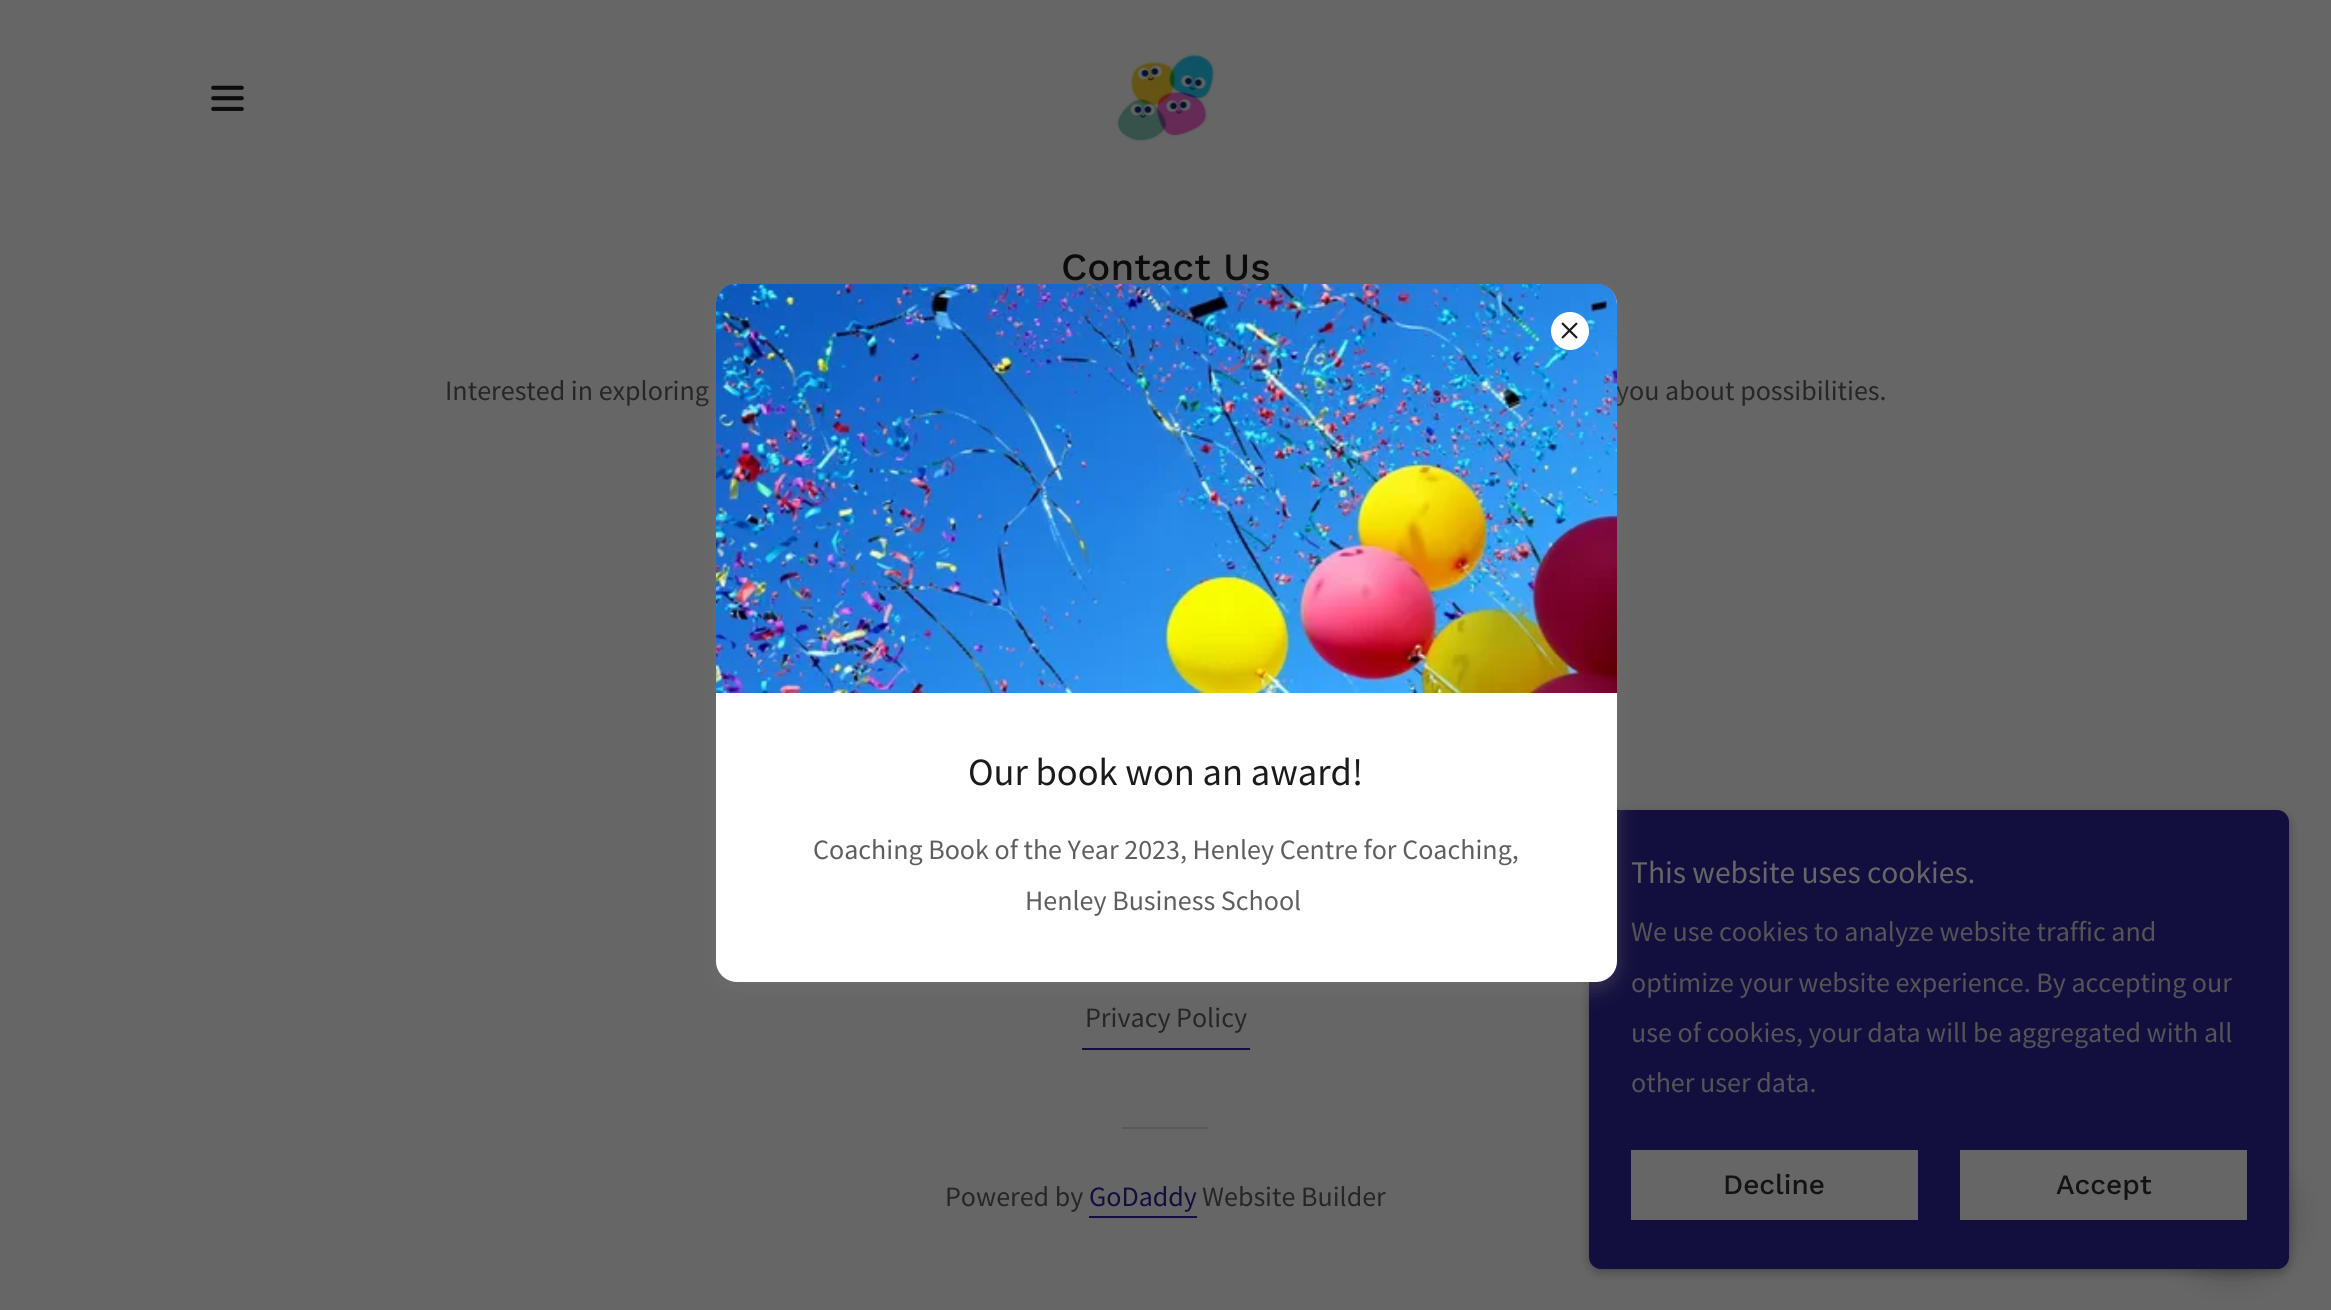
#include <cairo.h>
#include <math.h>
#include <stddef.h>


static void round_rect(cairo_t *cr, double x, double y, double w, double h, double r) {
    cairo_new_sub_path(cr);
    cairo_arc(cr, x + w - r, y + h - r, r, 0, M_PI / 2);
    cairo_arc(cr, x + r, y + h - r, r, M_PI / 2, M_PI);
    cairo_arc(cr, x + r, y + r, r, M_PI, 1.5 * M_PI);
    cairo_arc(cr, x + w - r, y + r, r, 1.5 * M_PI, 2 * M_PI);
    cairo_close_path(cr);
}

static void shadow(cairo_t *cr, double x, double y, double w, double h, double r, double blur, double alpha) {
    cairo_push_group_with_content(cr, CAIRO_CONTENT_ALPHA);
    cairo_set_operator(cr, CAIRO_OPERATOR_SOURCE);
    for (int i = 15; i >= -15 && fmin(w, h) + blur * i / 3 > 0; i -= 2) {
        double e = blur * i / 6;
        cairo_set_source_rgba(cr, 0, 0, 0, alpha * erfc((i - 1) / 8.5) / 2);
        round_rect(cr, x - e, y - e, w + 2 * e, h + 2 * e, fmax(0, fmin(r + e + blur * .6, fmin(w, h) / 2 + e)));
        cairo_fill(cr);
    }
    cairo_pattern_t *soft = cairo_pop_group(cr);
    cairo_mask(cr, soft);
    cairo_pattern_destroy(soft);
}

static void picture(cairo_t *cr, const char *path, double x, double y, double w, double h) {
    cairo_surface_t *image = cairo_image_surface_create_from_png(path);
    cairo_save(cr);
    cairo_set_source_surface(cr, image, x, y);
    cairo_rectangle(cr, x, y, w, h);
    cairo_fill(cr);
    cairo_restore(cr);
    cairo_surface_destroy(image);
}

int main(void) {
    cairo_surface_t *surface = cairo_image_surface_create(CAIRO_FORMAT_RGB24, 2331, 1310);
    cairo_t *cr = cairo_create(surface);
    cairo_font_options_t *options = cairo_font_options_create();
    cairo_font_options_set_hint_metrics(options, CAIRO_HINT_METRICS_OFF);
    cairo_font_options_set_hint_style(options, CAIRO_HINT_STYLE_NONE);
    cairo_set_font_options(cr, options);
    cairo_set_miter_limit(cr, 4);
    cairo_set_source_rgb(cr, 0.4, 0.4, 0.4);
    cairo_paint(cr);
    picture(cr, "img1.png", 211, 85, 33, 26);
    picture(cr, "img2.png", 1116, 51, 100, 91);
    cairo_select_font_face(cr, "Work Sans Medium", CAIRO_FONT_SLANT_NORMAL, CAIRO_FONT_WEIGHT_NORMAL);
    cairo_set_font_size(cr, 38.5);
    cairo_set_source_rgb(cr, 0.043, 0.043, 0.043);
    cairo_move_to(cr, 1061, 280);
    cairo_show_text(cr, "Contact Us");
    cairo_select_font_face(cr, "Source Sans Pro", CAIRO_FONT_SLANT_NORMAL, CAIRO_FONT_WEIGHT_NORMAL);
    cairo_set_font_size(cr, 28);
    cairo_set_source_rgb(cr, 0.149, 0.149, 0.149);
    cairo_move_to(cr, 445, 400);
    cairo_show_text(cr, "Interested in exploring");
    cairo_move_to(cr, 1616, 400);
    cairo_show_text(cr, "you about possibilities.");
    cairo_set_source_rgb(cr, 0, 0, 0);
    shadow(cr, 1589, 814, 700, 458, 12, 5, 0.3);
    shadow(cr, 2175, 1160, 114, 114, 57, 16, 0.25);
    cairo_set_source_rgb(cr, 0.071, 0.055, 0.243);
    round_rect(cr, 1589, 810, 700, 459, 12);
    cairo_fill(cr);
    cairo_set_source_rgb(cr, 0.459, 0.459, 0.459);
    shadow(cr, 716, 291, 901, 698, 21, 10.5, 0.4);
    cairo_set_source_rgb(cr, 1, 1, 1);
    round_rect(cr, 716, 284, 901, 698, 21);
    cairo_fill(cr);
    picture(cr, "img4.png", 716, 284, 901, 409);
    cairo_arc(cr, 1570, 331, 19, 0, 2 * M_PI);
    cairo_fill(cr);
    picture(cr, "img3.png", 1561, 322, 17, 17);
    cairo_set_font_size(cr, 38.5);
    cairo_set_source_rgb(cr, 0.106, 0.106, 0.106);
    cairo_move_to(cr, 968, 785);
    cairo_show_text(cr, "Our book won an award!");
    cairo_set_font_size(cr, 28);
    cairo_set_source_rgb(cr, 0.369, 0.369, 0.369);
    cairo_move_to(cr, 813, 859);
    cairo_show_text(cr, "Coaching Book of the Year 2023, Henley Centre for Coaching,");
    cairo_move_to(cr, 1025, 910);
    cairo_show_text(cr, "Henley Business School");
    cairo_set_source_rgb(cr, 0.071, 0.055, 0.243);
    cairo_rectangle(cr, 1082, 1048, 168, 2);
    cairo_fill(cr);
    cairo_set_source_rgb(cr, 0.149, 0.149, 0.149);
    cairo_move_to(cr, 1085, 1027);
    cairo_show_text(cr, "Privacy Policy");
    cairo_set_source_rgb(cr, 0.353, 0.353, 0.353);
    cairo_rectangle(cr, 1122, 1127, 87, 2);
    cairo_fill(cr);
    cairo_set_source_rgb(cr, 0.149, 0.149, 0.149);
    cairo_move_to(cr, 945, 1206);
    cairo_show_text(cr, "Powered by");
    cairo_set_source_rgb(cr, 0.071, 0.055, 0.243);
    cairo_move_to(cr, 1089, 1206);
    cairo_show_text(cr, "GoDaddy");
    cairo_rectangle(cr, 1089, 1216, 108, 2);
    cairo_fill(cr);
    cairo_set_source_rgb(cr, 0.149, 0.149, 0.149);
    cairo_move_to(cr, 1202, 1206);
    cairo_show_text(cr, "Website Builder");
    cairo_set_font_size(cr, 31.5);
    cairo_set_source_rgb(cr, 0.4, 0.4, 0.4);
    cairo_move_to(cr, 1631, 883);
    cairo_show_text(cr, "This website uses cookies.");
    cairo_set_font_size(cr, 28);
    cairo_set_source_rgb(cr, 0.329, 0.329, 0.341);
    cairo_move_to(cr, 1631, 941);
    cairo_show_text(cr, "We use cookies to analyze website traffic and");
    cairo_move_to(cr, 1631, 992);
    cairo_show_text(cr, "optimize your website experience. By accepting our");
    cairo_move_to(cr, 1631, 1042);
    cairo_show_text(cr, "use of cookies, your data will be aggregated with all");
    cairo_move_to(cr, 1631, 1092);
    cairo_show_text(cr, "other user data.");
    cairo_set_source_rgb(cr, 0.4, 0.4, 0.4);
    cairo_rectangle(cr, 1631, 1150, 287, 70);
    cairo_fill(cr);
    cairo_select_font_face(cr, "Work Sans Medium", CAIRO_FONT_SLANT_NORMAL, CAIRO_FONT_WEIGHT_NORMAL);
    cairo_set_source_rgb(cr, 0.075, 0.075, 0.075);
    cairo_move_to(cr, 1723, 1194);
    cairo_show_text(cr, "Decline");
    cairo_set_source_rgb(cr, 0.4, 0.4, 0.4);
    cairo_rectangle(cr, 1960, 1150, 287, 70);
    cairo_fill(cr);
    cairo_set_source_rgb(cr, 0.075, 0.075, 0.075);
    cairo_move_to(cr, 2056, 1194);
    cairo_show_text(cr, "Accept");
    cairo_surface_write_to_png(surface, "page.png");
    cairo_font_options_destroy(options);
    cairo_destroy(cr);
    cairo_surface_destroy(surface);
    return 0;
}
